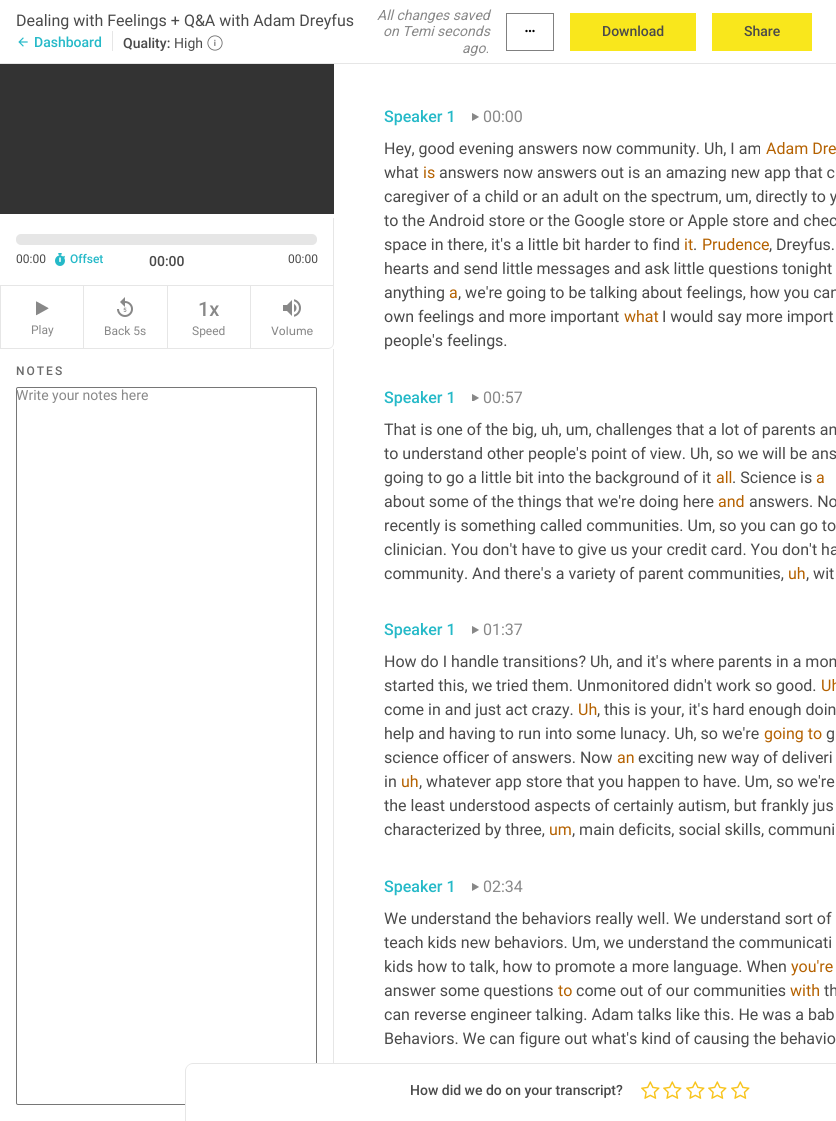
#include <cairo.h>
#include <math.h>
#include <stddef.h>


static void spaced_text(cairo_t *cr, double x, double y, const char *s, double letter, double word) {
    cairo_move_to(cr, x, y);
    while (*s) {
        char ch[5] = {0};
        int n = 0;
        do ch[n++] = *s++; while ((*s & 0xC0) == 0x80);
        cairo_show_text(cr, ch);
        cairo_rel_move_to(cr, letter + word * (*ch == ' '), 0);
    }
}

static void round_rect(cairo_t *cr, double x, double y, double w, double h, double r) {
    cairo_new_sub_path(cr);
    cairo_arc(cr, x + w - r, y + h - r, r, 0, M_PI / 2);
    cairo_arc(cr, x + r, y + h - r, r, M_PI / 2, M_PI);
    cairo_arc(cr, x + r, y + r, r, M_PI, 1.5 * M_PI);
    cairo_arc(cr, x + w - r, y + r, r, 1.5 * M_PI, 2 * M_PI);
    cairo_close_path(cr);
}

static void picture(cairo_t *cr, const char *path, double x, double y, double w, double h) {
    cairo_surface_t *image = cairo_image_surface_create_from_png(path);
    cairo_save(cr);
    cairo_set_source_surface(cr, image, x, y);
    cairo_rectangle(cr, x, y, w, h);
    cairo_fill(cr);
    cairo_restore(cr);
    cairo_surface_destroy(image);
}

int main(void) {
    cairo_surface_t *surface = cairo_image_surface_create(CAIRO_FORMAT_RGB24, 836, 1121);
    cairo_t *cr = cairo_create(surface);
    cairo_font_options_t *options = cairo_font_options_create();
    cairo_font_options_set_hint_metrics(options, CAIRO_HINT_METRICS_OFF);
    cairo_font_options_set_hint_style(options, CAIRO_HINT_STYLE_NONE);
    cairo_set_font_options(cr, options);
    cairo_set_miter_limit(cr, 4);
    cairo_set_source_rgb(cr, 1, 1, 1);
    cairo_paint(cr);
    cairo_set_source_rgb(cr, 0.902, 0.902, 0.902);
    cairo_rectangle(cr, 0, 63, 836, 1);
    cairo_fill(cr);
    cairo_select_font_face(cr, "Roboto", CAIRO_FONT_SLANT_NORMAL, CAIRO_FONT_WEIGHT_NORMAL);
    cairo_set_font_size(cr, 16);
    cairo_set_source_rgb(cr, 0.29, 0.29, 0.29);
    cairo_move_to(cr, 16, 26);
    cairo_show_text(cr, "Dealing with Feelings + Q&A with Adam Dreyfus");
    picture(cr, "img1.png", 18, 37, 10, 10);
    cairo_select_font_face(cr, "Roboto Medium", CAIRO_FONT_SLANT_NORMAL, CAIRO_FONT_WEIGHT_NORMAL);
    cairo_set_font_size(cr, 14);
    cairo_set_source_rgb(cr, 0.145, 0.725, 0.784);
    cairo_move_to(cr, 34, 47);
    cairo_show_text(cr, "Dashboard");
    cairo_set_source_rgb(cr, 0.902, 0.902, 0.902);
    cairo_rectangle(cr, 112, 31, 1, 20);
    cairo_fill(cr);
    cairo_set_source_rgb(cr, 0.29, 0.29, 0.29);
    cairo_move_to(cr, 123, 48);
    cairo_show_text(cr, "Quality:");
    cairo_select_font_face(cr, "Roboto", CAIRO_FONT_SLANT_NORMAL, CAIRO_FONT_WEIGHT_NORMAL);
    cairo_move_to(cr, 174, 48);
    cairo_show_text(cr, "High");
    picture(cr, "img2.png", 207, 35, 16, 16);
    cairo_select_font_face(cr, "Roboto", CAIRO_FONT_SLANT_ITALIC, CAIRO_FONT_WEIGHT_NORMAL);
    cairo_set_source_rgb(cr, 0.533, 0.533, 0.533);
    cairo_move_to(cr, 377, 20);
    cairo_show_text(cr, "All changes saved");
    cairo_move_to(cr, 383, 36);
    cairo_show_text(cr, "on Temi seconds");
    cairo_move_to(cr, 462, 53);
    cairo_show_text(cr, "ago.");
    cairo_rectangle(cr, 506.5, 13.5, 47, 37);
    cairo_set_source_rgb(cr, 0.502, 0.502, 0.502);
    cairo_set_line_width(cr, 1);
    cairo_stroke(cr);
    picture(cr, "img3.png", 525, 29, 10, 4);
    cairo_set_source_rgb(cr, 0.973, 0.906, 0.11);
    cairo_rectangle(cr, 570, 13, 126, 38);
    cairo_fill(cr);
    cairo_select_font_face(cr, "Roboto Medium", CAIRO_FONT_SLANT_NORMAL, CAIRO_FONT_WEIGHT_NORMAL);
    cairo_set_source_rgb(cr, 0.29, 0.29, 0.29);
    cairo_move_to(cr, 602, 36);
    cairo_show_text(cr, "Download");
    cairo_set_source_rgb(cr, 0.973, 0.906, 0.11);
    cairo_rectangle(cr, 712, 13, 100, 38);
    cairo_fill(cr);
    cairo_set_source_rgb(cr, 0.29, 0.29, 0.29);
    cairo_move_to(cr, 744, 36);
    cairo_show_text(cr, "Share");
    cairo_set_source_rgb(cr, 0.2, 0.2, 0.2);
    cairo_rectangle(cr, 0, 64, 334, 150);
    cairo_fill(cr);
    cairo_set_source_rgb(cr, 0.902, 0.902, 0.902);
    cairo_rectangle(cr, 333, 218, 1, 67);
    cairo_fill(cr);
    round_rect(cr, 16, 234, 301, 11, 5);
    cairo_fill(cr);
    cairo_select_font_face(cr, "Roboto", CAIRO_FONT_SLANT_NORMAL, CAIRO_FONT_WEIGHT_NORMAL);
    cairo_set_font_size(cr, 12);
    cairo_set_source_rgb(cr, 0.29, 0.29, 0.29);
    cairo_move_to(cr, 16, 263);
    cairo_show_text(cr, "00:00");
    picture(cr, "img4.png", 55, 253, 10, 13);
    cairo_select_font_face(cr, "Roboto Medium", CAIRO_FONT_SLANT_NORMAL, CAIRO_FONT_WEIGHT_NORMAL);
    cairo_set_source_rgb(cr, 0.145, 0.725, 0.784);
    cairo_move_to(cr, 70, 263);
    cairo_show_text(cr, "Offset");
    cairo_set_font_size(cr, 14);
    cairo_set_source_rgb(cr, 0.29, 0.29, 0.29);
    cairo_move_to(cr, 149, 266);
    cairo_show_text(cr, "00:00");
    cairo_select_font_face(cr, "Roboto", CAIRO_FONT_SLANT_NORMAL, CAIRO_FONT_WEIGHT_NORMAL);
    cairo_set_font_size(cr, 12);
    cairo_move_to(cr, 288, 263);
    cairo_show_text(cr, "00:00");
    cairo_rectangle(cr, 0.5, 285.5, 83, 63);
    cairo_set_source_rgb(cr, 0.902, 0.902, 0.902);
    cairo_stroke(cr);
    picture(cr, "img5.png", 36, 301, 13, 15);
    cairo_set_source_rgb(cr, 0.533, 0.533, 0.533);
    cairo_move_to(cr, 31, 334);
    cairo_show_text(cr, "Play");
    cairo_set_source_rgb(cr, 0.902, 0.902, 0.902);
    cairo_rectangle(cr, 84, 285, 167, 1);
    cairo_fill(cr);
    cairo_rectangle(cr, 167, 285, 1, 64);
    cairo_fill(cr);
    cairo_rectangle(cr, 84, 348, 84, 1);
    cairo_fill(cr);
    picture(cr, "img6.png", 117, 297, 16, 20);
    cairo_set_source_rgb(cr, 0.533, 0.533, 0.533);
    cairo_move_to(cr, 104, 335);
    cairo_show_text(cr, "Back 5s");
    cairo_set_source_rgb(cr, 0.902, 0.902, 0.902);
    cairo_rectangle(cr, 250, 285, 1, 64);
    cairo_fill(cr);
    cairo_rectangle(cr, 168, 348, 83, 1);
    cairo_fill(cr);
    cairo_select_font_face(cr, "Roboto Medium", CAIRO_FONT_SLANT_NORMAL, CAIRO_FONT_WEIGHT_NORMAL);
    cairo_set_font_size(cr, 20);
    cairo_set_source_rgb(cr, 0.533, 0.533, 0.533);
    cairo_move_to(cr, 198, 316);
    cairo_show_text(cr, "1x");
    cairo_select_font_face(cr, "Roboto", CAIRO_FONT_SLANT_NORMAL, CAIRO_FONT_WEIGHT_NORMAL);
    cairo_set_font_size(cr, 12);
    cairo_move_to(cr, 192, 335);
    cairo_show_text(cr, "Speed");
    cairo_set_source_rgb(cr, 0.902, 0.902, 0.902);
    cairo_set_fill_rule(cr, CAIRO_FILL_RULE_EVEN_ODD);
    cairo_new_path(cr);
    cairo_move_to(cr, 251, 285);
    cairo_line_to(cr, 334, 285);
    cairo_line_to(cr, 334, 343);
    cairo_curve_to(cr, 334, 346, 331, 349, 328, 349);
    cairo_line_to(cr, 251, 349);
    cairo_close_path(cr);
    cairo_move_to(cr, 251, 286);
    cairo_line_to(cr, 333, 286);
    cairo_line_to(cr, 333, 343);
    cairo_curve_to(cr, 333, 346, 331, 348, 328, 348);
    cairo_line_to(cr, 251, 348);
    cairo_close_path(cr);
    cairo_fill(cr);
    picture(cr, "img7.png", 283, 299, 18, 18);
    cairo_select_font_face(cr, "Rubik", CAIRO_FONT_SLANT_NORMAL, CAIRO_FONT_WEIGHT_NORMAL);
    cairo_set_source_rgb(cr, 0.533, 0.533, 0.533);
    cairo_move_to(cr, 271, 335);
    cairo_show_text(cr, "Volume");
    cairo_set_source_rgb(cr, 0.902, 0.902, 0.902);
    cairo_rectangle(cr, 333, 349, 1, 714);
    cairo_fill(cr);
    cairo_select_font_face(cr, "Roboto Medium", CAIRO_FONT_SLANT_NORMAL, CAIRO_FONT_WEIGHT_NORMAL);
    cairo_set_source_rgb(cr, 0.416, 0.416, 0.416);
    spaced_text(cr, 16, 375, "NOTES", 2, 0);
    round_rect(cr, 16.5, 387.5, 300, 717, 1.5);
    cairo_set_source_rgb(cr, 0.463, 0.463, 0.463);
    cairo_stroke(cr);
    cairo_select_font_face(cr, "Roboto", CAIRO_FONT_SLANT_NORMAL, CAIRO_FONT_WEIGHT_NORMAL);
    cairo_set_font_size(cr, 14);
    cairo_set_source_rgb(cr, 0.533, 0.533, 0.533);
    cairo_move_to(cr, 16, 400);
    cairo_show_text(cr, "Write your notes here");
    cairo_select_font_face(cr, "Roboto Medium", CAIRO_FONT_SLANT_NORMAL, CAIRO_FONT_WEIGHT_NORMAL);
    cairo_set_font_size(cr, 16);
    cairo_set_source_rgb(cr, 0.145, 0.725, 0.784);
    cairo_move_to(cr, 384, 122);
    cairo_show_text(cr, "Speaker 1");
    picture(cr, "img8.png", 472, 113, 7, 8);
    cairo_select_font_face(cr, "Roboto", CAIRO_FONT_SLANT_NORMAL, CAIRO_FONT_WEIGHT_NORMAL);
    cairo_set_source_rgb(cr, 0.533, 0.533, 0.533);
    cairo_move_to(cr, 483, 122);
    cairo_show_text(cr, "00:00");
    cairo_set_source_rgb(cr, 0.29, 0.29, 0.29);
    cairo_move_to(cr, 384, 154);
    cairo_show_text(cr, "Hey, good evening answers now community. Uh, I am");
    cairo_set_source_rgb(cr, 0.706, 0.38, 0);
    cairo_move_to(cr, 766, 154);
    cairo_show_text(cr, "Adam Dre");
    cairo_set_source_rgb(cr, 0.29, 0.29, 0.29);
    cairo_move_to(cr, 384, 178);
    cairo_show_text(cr, "what");
    cairo_set_source_rgb(cr, 0.706, 0.38, 0);
    cairo_move_to(cr, 423, 178);
    cairo_show_text(cr, "is");
    cairo_set_source_rgb(cr, 0.29, 0.29, 0.29);
    cairo_move_to(cr, 439, 178);
    cairo_show_text(cr, "answers now answers out is an amazing new app that c");
    cairo_move_to(cr, 384, 202);
    cairo_show_text(cr, "caregiver of a child or an adult on the spectrum, um, directly to y");
    cairo_move_to(cr, 384, 226);
    cairo_show_text(cr, "to the Android store or the Google store or Apple store and chec");
    cairo_move_to(cr, 384, 250);
    cairo_show_text(cr, "space in there, it's a little bit harder to find");
    cairo_set_source_rgb(cr, 0.706, 0.38, 0);
    cairo_move_to(cr, 684, 250);
    cairo_show_text(cr, "it");
    cairo_set_source_rgb(cr, 0.29, 0.29, 0.29);
    cairo_move_to(cr, 693, 250);
    cairo_show_text(cr, ".");
    cairo_set_source_rgb(cr, 0.706, 0.38, 0);
    cairo_move_to(cr, 702, 250);
    cairo_show_text(cr, "Prudence");
    cairo_set_source_rgb(cr, 0.29, 0.29, 0.29);
    cairo_move_to(cr, 769, 250);
    cairo_show_text(cr, ", Dreyfus.");
    cairo_move_to(cr, 384, 274);
    cairo_show_text(cr, "hearts and send little messages and ask little questions tonight");
    cairo_move_to(cr, 384, 298);
    cairo_show_text(cr, "anything");
    cairo_set_source_rgb(cr, 0.706, 0.38, 0);
    cairo_move_to(cr, 449, 298);
    cairo_show_text(cr, "a");
    cairo_set_source_rgb(cr, 0.29, 0.29, 0.29);
    cairo_move_to(cr, 458, 298);
    cairo_show_text(cr, ", we're going to be talking about feelings, how you can");
    cairo_move_to(cr, 384, 322);
    cairo_show_text(cr, "own feelings and more important");
    cairo_set_source_rgb(cr, 0.706, 0.38, 0);
    cairo_move_to(cr, 624, 322);
    cairo_show_text(cr, "what");
    cairo_set_source_rgb(cr, 0.29, 0.29, 0.29);
    cairo_move_to(cr, 662, 322);
    cairo_show_text(cr, "I would say more import");
    cairo_move_to(cr, 384, 346);
    cairo_show_text(cr, "people's feelings.");
    cairo_select_font_face(cr, "Roboto Medium", CAIRO_FONT_SLANT_NORMAL, CAIRO_FONT_WEIGHT_NORMAL);
    cairo_set_source_rgb(cr, 0.145, 0.725, 0.784);
    cairo_move_to(cr, 384, 403);
    cairo_show_text(cr, "Speaker 1");
    picture(cr, "img9.png", 472, 394, 7, 7);
    cairo_select_font_face(cr, "Roboto", CAIRO_FONT_SLANT_NORMAL, CAIRO_FONT_WEIGHT_NORMAL);
    cairo_set_source_rgb(cr, 0.533, 0.533, 0.533);
    cairo_move_to(cr, 483, 403);
    cairo_show_text(cr, "00:57");
    cairo_set_source_rgb(cr, 0.29, 0.29, 0.29);
    cairo_move_to(cr, 384, 435);
    cairo_show_text(cr, "That is one of the big, uh, um, challenges that a lot of parents an");
    cairo_move_to(cr, 384, 459);
    cairo_show_text(cr, "to understand other people's point of view. Uh, so we will be ans");
    cairo_move_to(cr, 384, 483);
    cairo_show_text(cr, "going to go a little bit into the background of it");
    cairo_set_source_rgb(cr, 0.706, 0.38, 0);
    cairo_move_to(cr, 716, 483);
    cairo_show_text(cr, "all");
    cairo_set_source_rgb(cr, 0.29, 0.29, 0.29);
    cairo_move_to(cr, 732, 483);
    cairo_show_text(cr, ". Science is");
    cairo_set_source_rgb(cr, 0.706, 0.38, 0);
    cairo_move_to(cr, 816, 483);
    cairo_show_text(cr, "a");
    cairo_set_source_rgb(cr, 0.29, 0.29, 0.29);
    cairo_move_to(cr, 384, 507);
    cairo_show_text(cr, "about some of the things that we're doing here");
    cairo_set_source_rgb(cr, 0.706, 0.38, 0);
    cairo_move_to(cr, 718, 507);
    cairo_show_text(cr, "and");
    cairo_set_source_rgb(cr, 0.29, 0.29, 0.29);
    cairo_move_to(cr, 749, 507);
    cairo_show_text(cr, "answers. No");
    cairo_move_to(cr, 384, 531);
    cairo_show_text(cr, "recently is something called communities. Um, so you can go to");
    cairo_move_to(cr, 384, 555);
    cairo_show_text(cr, "clinician. You don't have to give us your credit card. You don't ha");
    cairo_move_to(cr, 384, 579);
    cairo_show_text(cr, "community. And there's a variety of parent communities,");
    cairo_set_source_rgb(cr, 0.706, 0.38, 0);
    cairo_move_to(cr, 788, 579);
    cairo_show_text(cr, "uh");
    cairo_set_source_rgb(cr, 0.29, 0.29, 0.29);
    cairo_move_to(cr, 806, 579);
    cairo_show_text(cr, ", wit");
    cairo_select_font_face(cr, "Roboto Medium", CAIRO_FONT_SLANT_NORMAL, CAIRO_FONT_WEIGHT_NORMAL);
    cairo_set_source_rgb(cr, 0.145, 0.725, 0.784);
    cairo_move_to(cr, 384, 635);
    cairo_show_text(cr, "Speaker 1");
    picture(cr, "img8.png", 472, 626, 7, 8);
    cairo_select_font_face(cr, "Roboto", CAIRO_FONT_SLANT_NORMAL, CAIRO_FONT_WEIGHT_NORMAL);
    cairo_set_source_rgb(cr, 0.533, 0.533, 0.533);
    cairo_move_to(cr, 483, 635);
    cairo_show_text(cr, "01:37");
    cairo_set_source_rgb(cr, 0.29, 0.29, 0.29);
    cairo_move_to(cr, 384, 667);
    cairo_show_text(cr, "How do I handle transitions? Uh, and it's where parents in a mon");
    cairo_move_to(cr, 384, 691);
    cairo_show_text(cr, "started this, we tried them. Unmonitored didn't work so good.");
    cairo_set_source_rgb(cr, 0.706, 0.38, 0);
    cairo_move_to(cr, 821, 691);
    cairo_show_text(cr, "Uh");
    cairo_set_source_rgb(cr, 0.29, 0.29, 0.29);
    cairo_move_to(cr, 384, 715);
    cairo_show_text(cr, "come in and just act crazy.");
    cairo_set_source_rgb(cr, 0.706, 0.38, 0);
    cairo_move_to(cr, 578, 715);
    cairo_show_text(cr, "Uh");
    cairo_set_source_rgb(cr, 0.29, 0.29, 0.29);
    cairo_move_to(cr, 597, 715);
    cairo_show_text(cr, ", this is your, it's hard enough doin");
    cairo_move_to(cr, 384, 739);
    cairo_show_text(cr, "help and having to run into some lunacy. Uh, so we're");
    cairo_set_source_rgb(cr, 0.706, 0.38, 0);
    cairo_move_to(cr, 764, 739);
    cairo_show_text(cr, "going to");
    cairo_set_source_rgb(cr, 0.29, 0.29, 0.29);
    cairo_move_to(cr, 826, 739);
    cairo_show_text(cr, "g");
    cairo_move_to(cr, 384, 763);
    cairo_show_text(cr, "science officer of answers. Now");
    cairo_set_source_rgb(cr, 0.706, 0.38, 0);
    cairo_move_to(cr, 617, 763);
    cairo_show_text(cr, "an");
    cairo_set_source_rgb(cr, 0.29, 0.29, 0.29);
    cairo_move_to(cr, 638, 763);
    cairo_show_text(cr, "exciting new way of deliveri");
    cairo_move_to(cr, 384, 787);
    cairo_show_text(cr, "in");
    cairo_set_source_rgb(cr, 0.706, 0.38, 0);
    cairo_move_to(cr, 401, 787);
    cairo_show_text(cr, "uh");
    cairo_set_source_rgb(cr, 0.29, 0.29, 0.29);
    cairo_move_to(cr, 419, 787);
    cairo_show_text(cr, ", whatever app store that you happen to have. Um, so we're");
    cairo_move_to(cr, 384, 811);
    cairo_show_text(cr, "the least understood aspects of certainly autism, but frankly jus");
    cairo_move_to(cr, 384, 835);
    cairo_show_text(cr, "characterized by three,");
    cairo_set_source_rgb(cr, 0.706, 0.38, 0);
    cairo_move_to(cr, 549, 835);
    cairo_show_text(cr, "um");
    cairo_set_source_rgb(cr, 0.29, 0.29, 0.29);
    cairo_move_to(cr, 572, 835);
    cairo_show_text(cr, ", main deficits, social skills, communi");
    cairo_select_font_face(cr, "Roboto Medium", CAIRO_FONT_SLANT_NORMAL, CAIRO_FONT_WEIGHT_NORMAL);
    cairo_set_source_rgb(cr, 0.145, 0.725, 0.784);
    cairo_move_to(cr, 384, 892);
    cairo_show_text(cr, "Speaker 1");
    picture(cr, "img8.png", 472, 883, 7, 8);
    cairo_select_font_face(cr, "Roboto", CAIRO_FONT_SLANT_NORMAL, CAIRO_FONT_WEIGHT_NORMAL);
    cairo_set_source_rgb(cr, 0.533, 0.533, 0.533);
    cairo_move_to(cr, 483, 892);
    cairo_show_text(cr, "02:34");
    cairo_set_source_rgb(cr, 0.29, 0.29, 0.29);
    cairo_move_to(cr, 384, 924);
    cairo_show_text(cr, "We understand the behaviors really well. We understand sort of");
    cairo_move_to(cr, 384, 948);
    cairo_show_text(cr, "teach kids new behaviors. Um, we understand the communicati");
    cairo_move_to(cr, 384, 972);
    cairo_show_text(cr, "kids how to talk, how to promote a more language. When");
    cairo_set_source_rgb(cr, 0.706, 0.38, 0);
    cairo_move_to(cr, 791, 972);
    cairo_show_text(cr, "you're");
    cairo_set_source_rgb(cr, 0.29, 0.29, 0.29);
    cairo_move_to(cr, 384, 996);
    cairo_show_text(cr, "answer some questions");
    cairo_set_source_rgb(cr, 0.706, 0.38, 0);
    cairo_move_to(cr, 558, 996);
    cairo_show_text(cr, "to");
    cairo_set_source_rgb(cr, 0.29, 0.29, 0.29);
    cairo_move_to(cr, 576, 996);
    cairo_show_text(cr, "come out of our communities");
    cairo_set_source_rgb(cr, 0.706, 0.38, 0);
    cairo_move_to(cr, 790, 996);
    cairo_show_text(cr, "with");
    cairo_set_source_rgb(cr, 0.29, 0.29, 0.29);
    cairo_move_to(cr, 824, 996);
    cairo_show_text(cr, "th");
    cairo_move_to(cr, 384, 1020);
    cairo_show_text(cr, "can reverse engineer talking. Adam talks like this. He was a bab");
    cairo_move_to(cr, 384, 1044);
    cairo_show_text(cr, "Behaviors. We can figure out what's kind of causing the behavio");
    cairo_set_source_rgb(cr, 1, 1, 1);
    cairo_new_path(cr);
    cairo_move_to(cr, 193, 1064);
    cairo_line_to(cr, 836, 1064);
    cairo_curve_to(cr, 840, 1064, 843, 1067, 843, 1071);
    cairo_line_to(cr, 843, 1121);
    cairo_line_to(cr, 186, 1121);
    cairo_line_to(cr, 186, 1071);
    cairo_curve_to(cr, 186, 1067, 189, 1064, 193, 1064);
    cairo_close_path(cr);
    cairo_fill(cr);
    cairo_set_source_rgb(cr, 0.902, 0.902, 0.902);
    cairo_new_path(cr);
    cairo_move_to(cr, 193, 1063);
    cairo_line_to(cr, 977, 1063);
    cairo_curve_to(cr, 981, 1063, 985, 1067, 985, 1071);
    cairo_line_to(cr, 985, 1121);
    cairo_line_to(cr, 185, 1121);
    cairo_line_to(cr, 185, 1071);
    cairo_curve_to(cr, 185, 1067, 189, 1063, 193, 1063);
    cairo_close_path(cr);
    cairo_move_to(cr, 193, 1064);
    cairo_line_to(cr, 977, 1064);
    cairo_curve_to(cr, 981, 1064, 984, 1067, 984, 1071);
    cairo_line_to(cr, 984, 1121);
    cairo_line_to(cr, 186, 1121);
    cairo_line_to(cr, 186, 1071);
    cairo_curve_to(cr, 186, 1067, 189, 1064, 193, 1064);
    cairo_close_path(cr);
    cairo_fill(cr);
    cairo_select_font_face(cr, "Roboto Medium", CAIRO_FONT_SLANT_NORMAL, CAIRO_FONT_WEIGHT_NORMAL);
    cairo_set_font_size(cr, 14);
    cairo_set_source_rgb(cr, 0.29, 0.29, 0.29);
    cairo_move_to(cr, 410, 1095);
    cairo_show_text(cr, "How did we do on your transcript?");
    picture(cr, "img10.png", 641, 1081, 19, 18);
    picture(cr, "img10.png", 663, 1081, 19, 18);
    picture(cr, "img10.png", 686, 1081, 19, 18);
    picture(cr, "img10.png", 708, 1081, 19, 18);
    picture(cr, "img10.png", 731, 1081, 19, 18);
    cairo_surface_write_to_png(surface, "page.png");
    cairo_font_options_destroy(options);
    cairo_destroy(cr);
    cairo_surface_destroy(surface);
    return 0;
}
